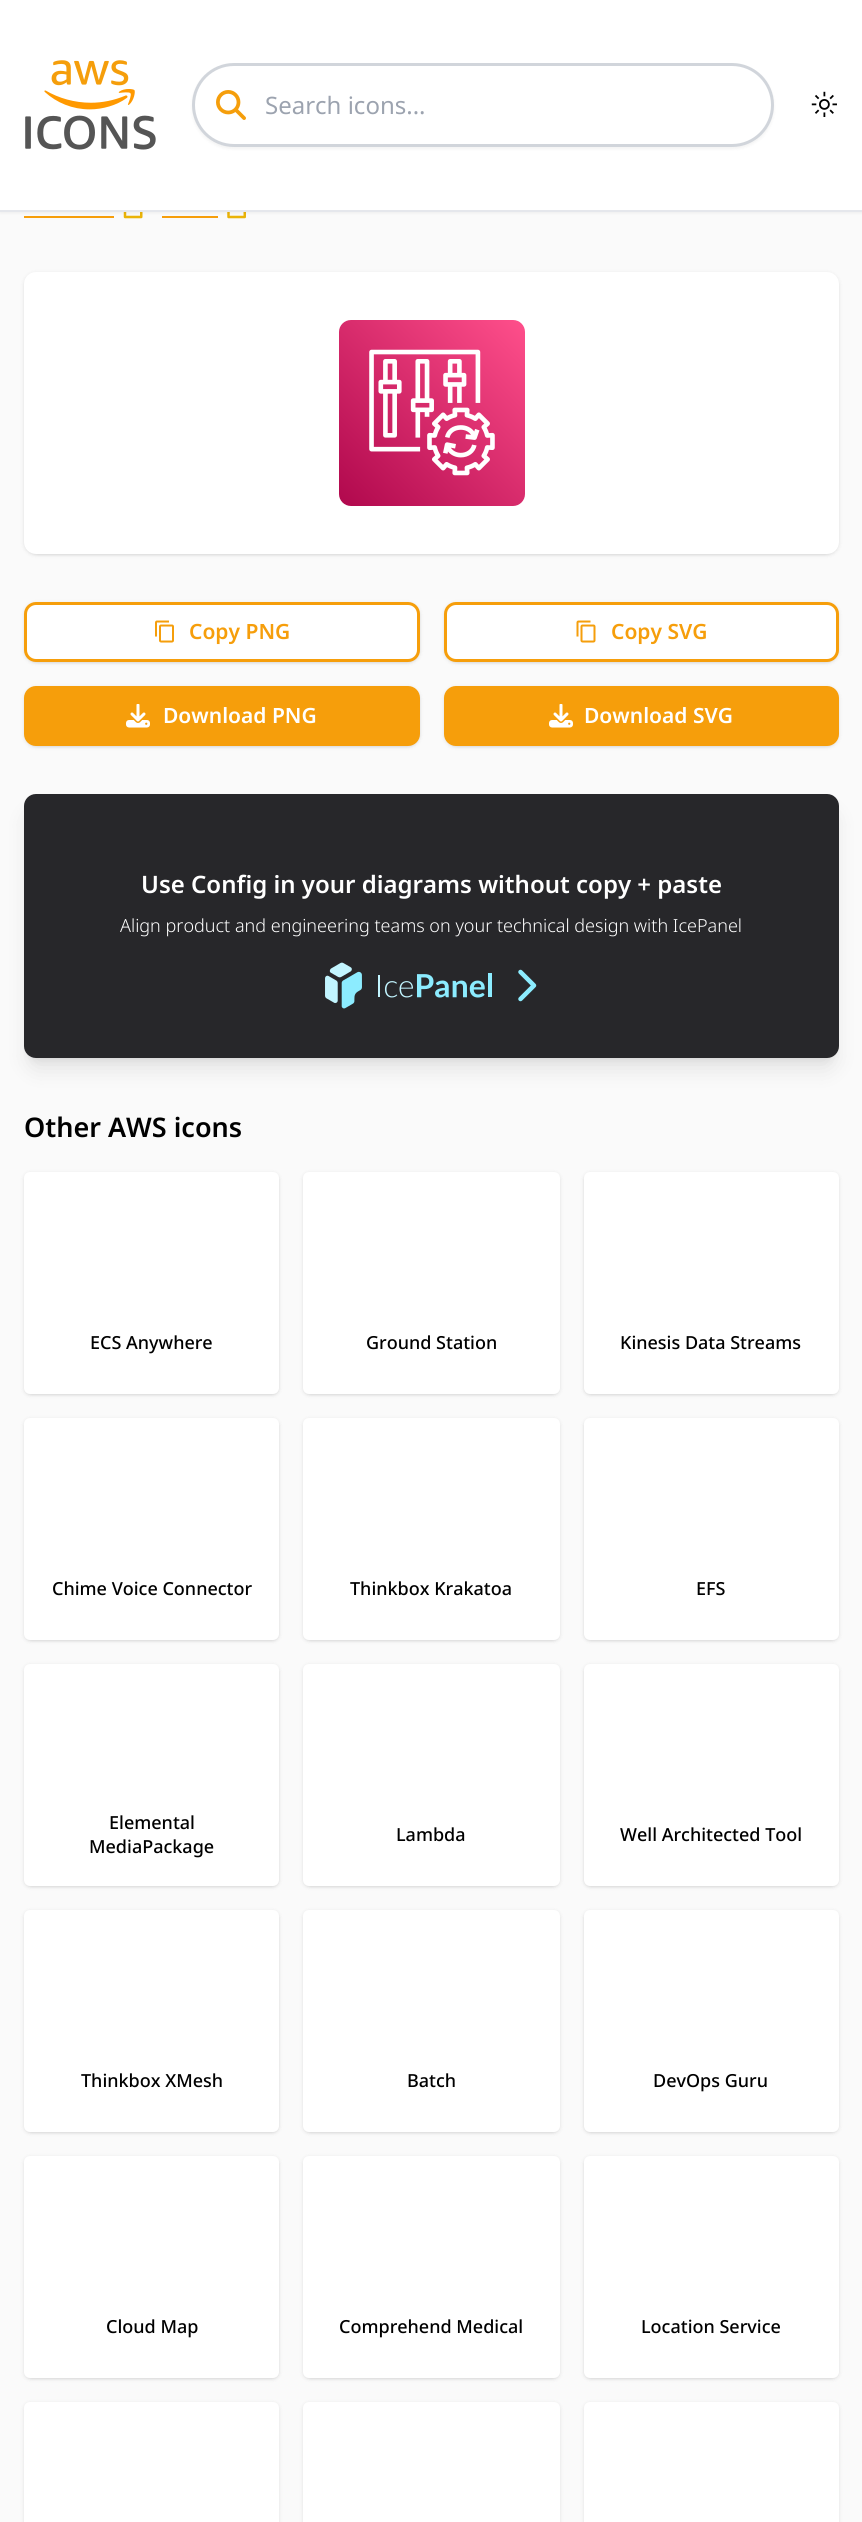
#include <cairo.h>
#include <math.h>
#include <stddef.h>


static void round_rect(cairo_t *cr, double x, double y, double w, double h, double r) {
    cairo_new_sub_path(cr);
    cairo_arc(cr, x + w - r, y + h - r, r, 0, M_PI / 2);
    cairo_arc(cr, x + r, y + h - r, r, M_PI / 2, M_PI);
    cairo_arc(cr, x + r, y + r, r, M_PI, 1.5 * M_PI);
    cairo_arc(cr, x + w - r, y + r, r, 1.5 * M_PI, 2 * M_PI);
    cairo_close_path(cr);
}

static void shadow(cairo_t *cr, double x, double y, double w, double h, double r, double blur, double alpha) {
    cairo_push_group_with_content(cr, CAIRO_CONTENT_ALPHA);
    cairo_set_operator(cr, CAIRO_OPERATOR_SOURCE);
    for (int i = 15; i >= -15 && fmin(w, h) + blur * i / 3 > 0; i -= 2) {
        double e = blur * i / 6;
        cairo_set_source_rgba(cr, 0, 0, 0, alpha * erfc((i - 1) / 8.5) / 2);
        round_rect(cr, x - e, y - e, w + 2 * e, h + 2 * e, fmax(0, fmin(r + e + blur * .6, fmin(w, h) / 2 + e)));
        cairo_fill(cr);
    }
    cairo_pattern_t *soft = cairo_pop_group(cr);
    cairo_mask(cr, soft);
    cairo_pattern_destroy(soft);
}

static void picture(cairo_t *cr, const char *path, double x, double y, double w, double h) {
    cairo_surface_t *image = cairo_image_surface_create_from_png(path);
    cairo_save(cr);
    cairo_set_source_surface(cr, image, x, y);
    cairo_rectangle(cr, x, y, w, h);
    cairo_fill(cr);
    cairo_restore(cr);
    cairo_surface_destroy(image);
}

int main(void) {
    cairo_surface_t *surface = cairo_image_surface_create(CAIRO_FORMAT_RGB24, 862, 2522);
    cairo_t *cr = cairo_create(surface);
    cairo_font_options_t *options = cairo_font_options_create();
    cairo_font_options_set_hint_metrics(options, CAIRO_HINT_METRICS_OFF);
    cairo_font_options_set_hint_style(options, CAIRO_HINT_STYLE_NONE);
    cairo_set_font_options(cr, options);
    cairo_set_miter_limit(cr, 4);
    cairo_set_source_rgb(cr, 0.98, 0.98, 0.98);
    cairo_paint(cr);
    cairo_set_source_rgb(cr, 0.961, 0.62, 0.043);
    cairo_rectangle(cr, 24, 216, 90, 2);
    cairo_fill(cr);
    picture(cr, "img4.png", 123, 212, 20, 7);
    cairo_rectangle(cr, 162, 216, 56, 2);
    cairo_fill(cr);
    picture(cr, "img5.png", 227, 212, 19, 7);
    cairo_set_source_rgb(cr, 0, 0, 0);
    shadow(cr, 0, 2, 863, 211, 0, 1.5, 0.05);
    cairo_set_source_rgb(cr, 1, 1, 1);
    cairo_rectangle(cr, 0, 0, 862, 210);
    cairo_fill(cr);
    cairo_set_source_rgb(cr, 0.898, 0.906, 0.922);
    cairo_rectangle(cr, 0, 210, 862, 2);
    cairo_fill(cr);
    picture(cr, "img1.png", 25, 60, 131, 90);
    cairo_set_source_rgb(cr, 0, 0, 0);
    shadow(cr, 192, 65, 582, 84, 42, 1.5, 0.05);
    cairo_set_source_rgb(cr, 1, 1, 1);
    round_rect(cr, 193.5, 64.5, 579, 81, 40.5);
    cairo_fill_preserve(cr);
    cairo_set_source_rgb(cr, 0.82, 0.835, 0.859);
    cairo_set_line_width(cr, 3);
    cairo_stroke(cr);
    picture(cr, "img2.png", 216, 90, 30, 30);
    cairo_select_font_face(cr, "Noto Sans", CAIRO_FONT_SLANT_NORMAL, CAIRO_FONT_WEIGHT_NORMAL);
    cairo_set_font_size(cr, 24);
    cairo_set_source_rgb(cr, 0.612, 0.639, 0.686);
    cairo_move_to(cr, 265, 114);
    cairo_show_text(cr, "Search icons...");
    picture(cr, "img3.png", 811, 91, 26, 26);
    cairo_set_source_rgb(cr, 0, 0, 0);
    shadow(cr, 26, 275, 811, 279, 11, 1.5, 0.1);
    shadow(cr, 24, 273, 815, 282, 12, 2, 0.1);
    cairo_set_source_rgb(cr, 1, 1, 1);
    round_rect(cr, 24, 272, 815, 282, 12);
    cairo_fill(cr);
    picture(cr, "img6.png", 339, 320, 186, 186);
    cairo_set_source_rgb(cr, 0, 0, 0);
    shadow(cr, 26, 605, 393, 57, 11, 1.5, 0.1);
    shadow(cr, 24, 603, 396, 60, 12, 2, 0.1);
    cairo_set_source_rgb(cr, 1, 1, 1);
    round_rect(cr, 25.5, 603.5, 393, 57, 10.5);
    cairo_fill_preserve(cr);
    cairo_set_source_rgb(cr, 0.961, 0.62, 0.043);
    cairo_stroke(cr);
    picture(cr, "img7.png", 155, 620, 19, 23);
    cairo_select_font_face(cr, "Noto Sans SemiBold", CAIRO_FONT_SLANT_NORMAL, CAIRO_FONT_WEIGHT_NORMAL);
    cairo_set_font_size(cr, 21);
    cairo_move_to(cr, 189, 639);
    cairo_show_text(cr, "Copy PNG");
    cairo_set_source_rgb(cr, 0, 0, 0);
    shadow(cr, 446, 605, 391, 57, 11, 1.5, 0.1);
    shadow(cr, 444, 603, 395, 60, 12, 2, 0.1);
    cairo_set_source_rgb(cr, 1, 1, 1);
    round_rect(cr, 445.5, 603.5, 392, 57, 10.5);
    cairo_fill_preserve(cr);
    cairo_set_source_rgb(cr, 0.961, 0.62, 0.043);
    cairo_stroke(cr);
    picture(cr, "img8.png", 576, 620, 20, 23);
    cairo_move_to(cr, 611, 639);
    cairo_show_text(cr, "Copy SVG");
    cairo_set_source_rgb(cr, 0, 0, 0);
    shadow(cr, 26, 689, 393, 57, 11, 1.5, 0.1);
    shadow(cr, 24, 687, 396, 60, 12, 2, 0.1);
    cairo_set_source_rgb(cr, 0.961, 0.62, 0.043);
    round_rect(cr, 25.5, 687.5, 393, 57, 10.5);
    cairo_fill_preserve(cr);
    cairo_stroke(cr);
    picture(cr, "img9.png", 126, 704, 24, 24);
    cairo_set_source_rgb(cr, 1, 1, 1);
    cairo_move_to(cr, 163, 723);
    cairo_show_text(cr, "Download PNG");
    cairo_set_source_rgb(cr, 0, 0, 0);
    shadow(cr, 446, 689, 391, 57, 11, 1.5, 0.1);
    shadow(cr, 444, 687, 395, 60, 12, 2, 0.1);
    cairo_set_source_rgb(cr, 0.961, 0.62, 0.043);
    round_rect(cr, 445.5, 687.5, 392, 57, 10.5);
    cairo_fill_preserve(cr);
    cairo_stroke(cr);
    picture(cr, "img9.png", 549, 704, 24, 24);
    cairo_set_source_rgb(cr, 1, 1, 1);
    cairo_move_to(cr, 584, 723);
    cairo_show_text(cr, "Download SVG");
    cairo_set_source_rgb(cr, 0, 0, 0);
    shadow(cr, 30, 806, 803, 252, 6, 4.5, 0.1);
    shadow(cr, 29, 813, 805, 255, 8, 11, 0.1);
    cairo_set_source_rgb(cr, 0.153, 0.153, 0.165);
    round_rect(cr, 24, 794, 815, 264, 12);
    cairo_fill(cr);
    cairo_set_font_size(cr, 24);
    cairo_set_source_rgb(cr, 1, 1, 1);
    cairo_move_to(cr, 141, 893);
    cairo_show_text(cr, "Use Config in your diagrams without copy + paste");
    cairo_select_font_face(cr, "Noto Sans Light", CAIRO_FONT_SLANT_NORMAL, CAIRO_FONT_WEIGHT_NORMAL);
    cairo_set_font_size(cr, 18);
    cairo_move_to(cr, 120, 932);
    cairo_show_text(cr, "Align product and engineering teams on your technical design with IcePanel");
    picture(cr, "img10.png", 325, 962, 167, 47);
    picture(cr, "img11.png", 518, 969, 19, 33);
    cairo_select_font_face(cr, "Noto Sans SemiBold", CAIRO_FONT_SLANT_NORMAL, CAIRO_FONT_WEIGHT_NORMAL);
    cairo_set_font_size(cr, 27);
    cairo_set_source_rgb(cr, 0, 0, 0);
    cairo_move_to(cr, 24, 1137);
    cairo_show_text(cr, "Other AWS icons");
    cairo_set_source_rgb(cr, 0, 0, 0);
    shadow(cr, 26, 1175, 252, 219, 5, 1.5, 0.1);
    shadow(cr, 24, 1173, 255, 222, 6, 2, 0.1);
    cairo_set_source_rgb(cr, 1, 1, 1);
    round_rect(cr, 24, 1172, 255, 222, 6);
    cairo_fill(cr);
    cairo_select_font_face(cr, "Noto Sans Medium", CAIRO_FONT_SLANT_NORMAL, CAIRO_FONT_WEIGHT_NORMAL);
    cairo_set_font_size(cr, 18);
    cairo_set_source_rgb(cr, 0, 0, 0);
    cairo_move_to(cr, 90, 1349);
    cairo_show_text(cr, "ECS Anywhere");
    cairo_set_source_rgb(cr, 0, 0, 0);
    shadow(cr, 305, 1175, 253, 219, 5, 1.5, 0.1);
    shadow(cr, 303, 1173, 257, 222, 6, 2, 0.1);
    cairo_set_source_rgb(cr, 1, 1, 1);
    round_rect(cr, 303, 1172, 257, 222, 6);
    cairo_fill(cr);
    cairo_set_source_rgb(cr, 0, 0, 0);
    cairo_move_to(cr, 366, 1349);
    cairo_show_text(cr, "Ground Station");
    cairo_set_source_rgb(cr, 0, 0, 0);
    shadow(cr, 585, 1175, 252, 219, 5, 1.5, 0.1);
    shadow(cr, 584, 1173, 255, 222, 6, 2, 0.1);
    cairo_set_source_rgb(cr, 1, 1, 1);
    round_rect(cr, 584, 1172, 255, 222, 6);
    cairo_fill(cr);
    cairo_set_source_rgb(cr, 0, 0, 0);
    cairo_move_to(cr, 620, 1349);
    cairo_show_text(cr, "Kinesis Data Streams");
    cairo_set_source_rgb(cr, 0, 0, 0);
    shadow(cr, 26, 1421, 252, 219, 5, 1.5, 0.1);
    shadow(cr, 24, 1419, 255, 222, 6, 2, 0.1);
    cairo_set_source_rgb(cr, 1, 1, 1);
    round_rect(cr, 24, 1418, 255, 222, 6);
    cairo_fill(cr);
    cairo_set_source_rgb(cr, 0, 0, 0);
    cairo_move_to(cr, 52, 1595);
    cairo_show_text(cr, "Chime Voice Connector");
    cairo_set_source_rgb(cr, 0, 0, 0);
    shadow(cr, 305, 1421, 253, 219, 5, 1.5, 0.1);
    shadow(cr, 303, 1419, 257, 222, 6, 2, 0.1);
    cairo_set_source_rgb(cr, 1, 1, 1);
    round_rect(cr, 303, 1418, 257, 222, 6);
    cairo_fill(cr);
    cairo_set_source_rgb(cr, 0, 0, 0);
    cairo_move_to(cr, 350, 1595);
    cairo_show_text(cr, "Thinkbox Krakatoa");
    cairo_set_source_rgb(cr, 0, 0, 0);
    shadow(cr, 585, 1421, 252, 219, 5, 1.5, 0.1);
    shadow(cr, 584, 1419, 255, 222, 6, 2, 0.1);
    cairo_set_source_rgb(cr, 1, 1, 1);
    round_rect(cr, 584, 1418, 255, 222, 6);
    cairo_fill(cr);
    cairo_set_source_rgb(cr, 0, 0, 0);
    cairo_move_to(cr, 696, 1595);
    cairo_show_text(cr, "EFS");
    cairo_set_source_rgb(cr, 0, 0, 0);
    shadow(cr, 26, 1667, 252, 219, 5, 1.5, 0.1);
    shadow(cr, 24, 1665, 255, 222, 6, 2, 0.1);
    cairo_set_source_rgb(cr, 1, 1, 1);
    round_rect(cr, 24, 1664, 255, 222, 6);
    cairo_fill(cr);
    cairo_set_source_rgb(cr, 0, 0, 0);
    cairo_move_to(cr, 109, 1829);
    cairo_show_text(cr, "Elemental");
    cairo_move_to(cr, 89, 1853);
    cairo_show_text(cr, "MediaPackage");
    cairo_set_source_rgb(cr, 0, 0, 0);
    shadow(cr, 305, 1667, 253, 219, 5, 1.5, 0.1);
    shadow(cr, 303, 1665, 257, 222, 6, 2, 0.1);
    cairo_set_source_rgb(cr, 1, 1, 1);
    round_rect(cr, 303, 1664, 257, 222, 6);
    cairo_fill(cr);
    cairo_set_source_rgb(cr, 0, 0, 0);
    cairo_move_to(cr, 396, 1841);
    cairo_show_text(cr, "Lambda");
    cairo_set_source_rgb(cr, 0, 0, 0);
    shadow(cr, 585, 1667, 252, 219, 5, 1.5, 0.1);
    shadow(cr, 584, 1665, 255, 222, 6, 2, 0.1);
    cairo_set_source_rgb(cr, 1, 1, 1);
    round_rect(cr, 584, 1664, 255, 222, 6);
    cairo_fill(cr);
    cairo_set_source_rgb(cr, 0, 0, 0);
    cairo_move_to(cr, 620, 1841);
    cairo_show_text(cr, "Well Architected Tool");
    cairo_set_source_rgb(cr, 0, 0, 0);
    shadow(cr, 26, 1913, 252, 219, 5, 1.5, 0.1);
    shadow(cr, 24, 1911, 255, 222, 6, 2, 0.1);
    cairo_set_source_rgb(cr, 1, 1, 1);
    round_rect(cr, 24, 1910, 255, 222, 6);
    cairo_fill(cr);
    cairo_set_source_rgb(cr, 0, 0, 0);
    cairo_move_to(cr, 81, 2087);
    cairo_show_text(cr, "Thinkbox XMesh");
    cairo_set_source_rgb(cr, 0, 0, 0);
    shadow(cr, 305, 1913, 253, 219, 5, 1.5, 0.1);
    shadow(cr, 303, 1911, 257, 222, 6, 2, 0.1);
    cairo_set_source_rgb(cr, 1, 1, 1);
    round_rect(cr, 303, 1910, 257, 222, 6);
    cairo_fill(cr);
    cairo_set_source_rgb(cr, 0, 0, 0);
    cairo_move_to(cr, 407, 2087);
    cairo_show_text(cr, "Batch");
    cairo_set_source_rgb(cr, 0, 0, 0);
    shadow(cr, 585, 1913, 252, 219, 5, 1.5, 0.1);
    shadow(cr, 584, 1911, 255, 222, 6, 2, 0.1);
    cairo_set_source_rgb(cr, 1, 1, 1);
    round_rect(cr, 584, 1910, 255, 222, 6);
    cairo_fill(cr);
    cairo_set_source_rgb(cr, 0, 0, 0);
    cairo_move_to(cr, 653, 2087);
    cairo_show_text(cr, "DevOps Guru");
    cairo_set_source_rgb(cr, 0, 0, 0);
    shadow(cr, 26, 2159, 252, 219, 5, 1.5, 0.1);
    shadow(cr, 24, 2157, 255, 222, 6, 2, 0.1);
    cairo_set_source_rgb(cr, 1, 1, 1);
    round_rect(cr, 24, 2156, 255, 222, 6);
    cairo_fill(cr);
    cairo_set_source_rgb(cr, 0, 0, 0);
    cairo_move_to(cr, 106, 2333);
    cairo_show_text(cr, "Cloud Map");
    cairo_set_source_rgb(cr, 0, 0, 0);
    shadow(cr, 305, 2159, 253, 219, 5, 1.5, 0.1);
    shadow(cr, 303, 2157, 257, 222, 6, 2, 0.1);
    cairo_set_source_rgb(cr, 1, 1, 1);
    round_rect(cr, 303, 2156, 257, 222, 6);
    cairo_fill(cr);
    cairo_set_source_rgb(cr, 0, 0, 0);
    cairo_move_to(cr, 339, 2333);
    cairo_show_text(cr, "Comprehend Medical");
    cairo_set_source_rgb(cr, 0, 0, 0);
    shadow(cr, 585, 2159, 252, 219, 5, 1.5, 0.1);
    shadow(cr, 584, 2157, 255, 222, 6, 2, 0.1);
    cairo_set_source_rgb(cr, 1, 1, 1);
    round_rect(cr, 584, 2156, 255, 222, 6);
    cairo_fill(cr);
    cairo_set_source_rgb(cr, 0, 0, 0);
    cairo_move_to(cr, 641, 2333);
    cairo_show_text(cr, "Location Service");
    cairo_set_source_rgb(cr, 0, 0, 0);
    shadow(cr, 24, 2403, 255, 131, 6, 2, 0.1);
    cairo_set_source_rgb(cr, 1, 1, 1);
    round_rect(cr, 24, 2402, 255, 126, 6);
    cairo_fill(cr);
    cairo_set_source_rgb(cr, 0, 0, 0);
    shadow(cr, 303, 2403, 257, 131, 6, 2, 0.1);
    cairo_set_source_rgb(cr, 1, 1, 1);
    round_rect(cr, 303, 2402, 257, 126, 6);
    cairo_fill(cr);
    cairo_set_source_rgb(cr, 0, 0, 0);
    shadow(cr, 584, 2403, 255, 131, 6, 2, 0.1);
    cairo_set_source_rgb(cr, 1, 1, 1);
    round_rect(cr, 584, 2402, 255, 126, 6);
    cairo_fill(cr);
    cairo_surface_write_to_png(surface, "page.png");
    cairo_font_options_destroy(options);
    cairo_destroy(cr);
    cairo_surface_destroy(surface);
    return 0;
}
